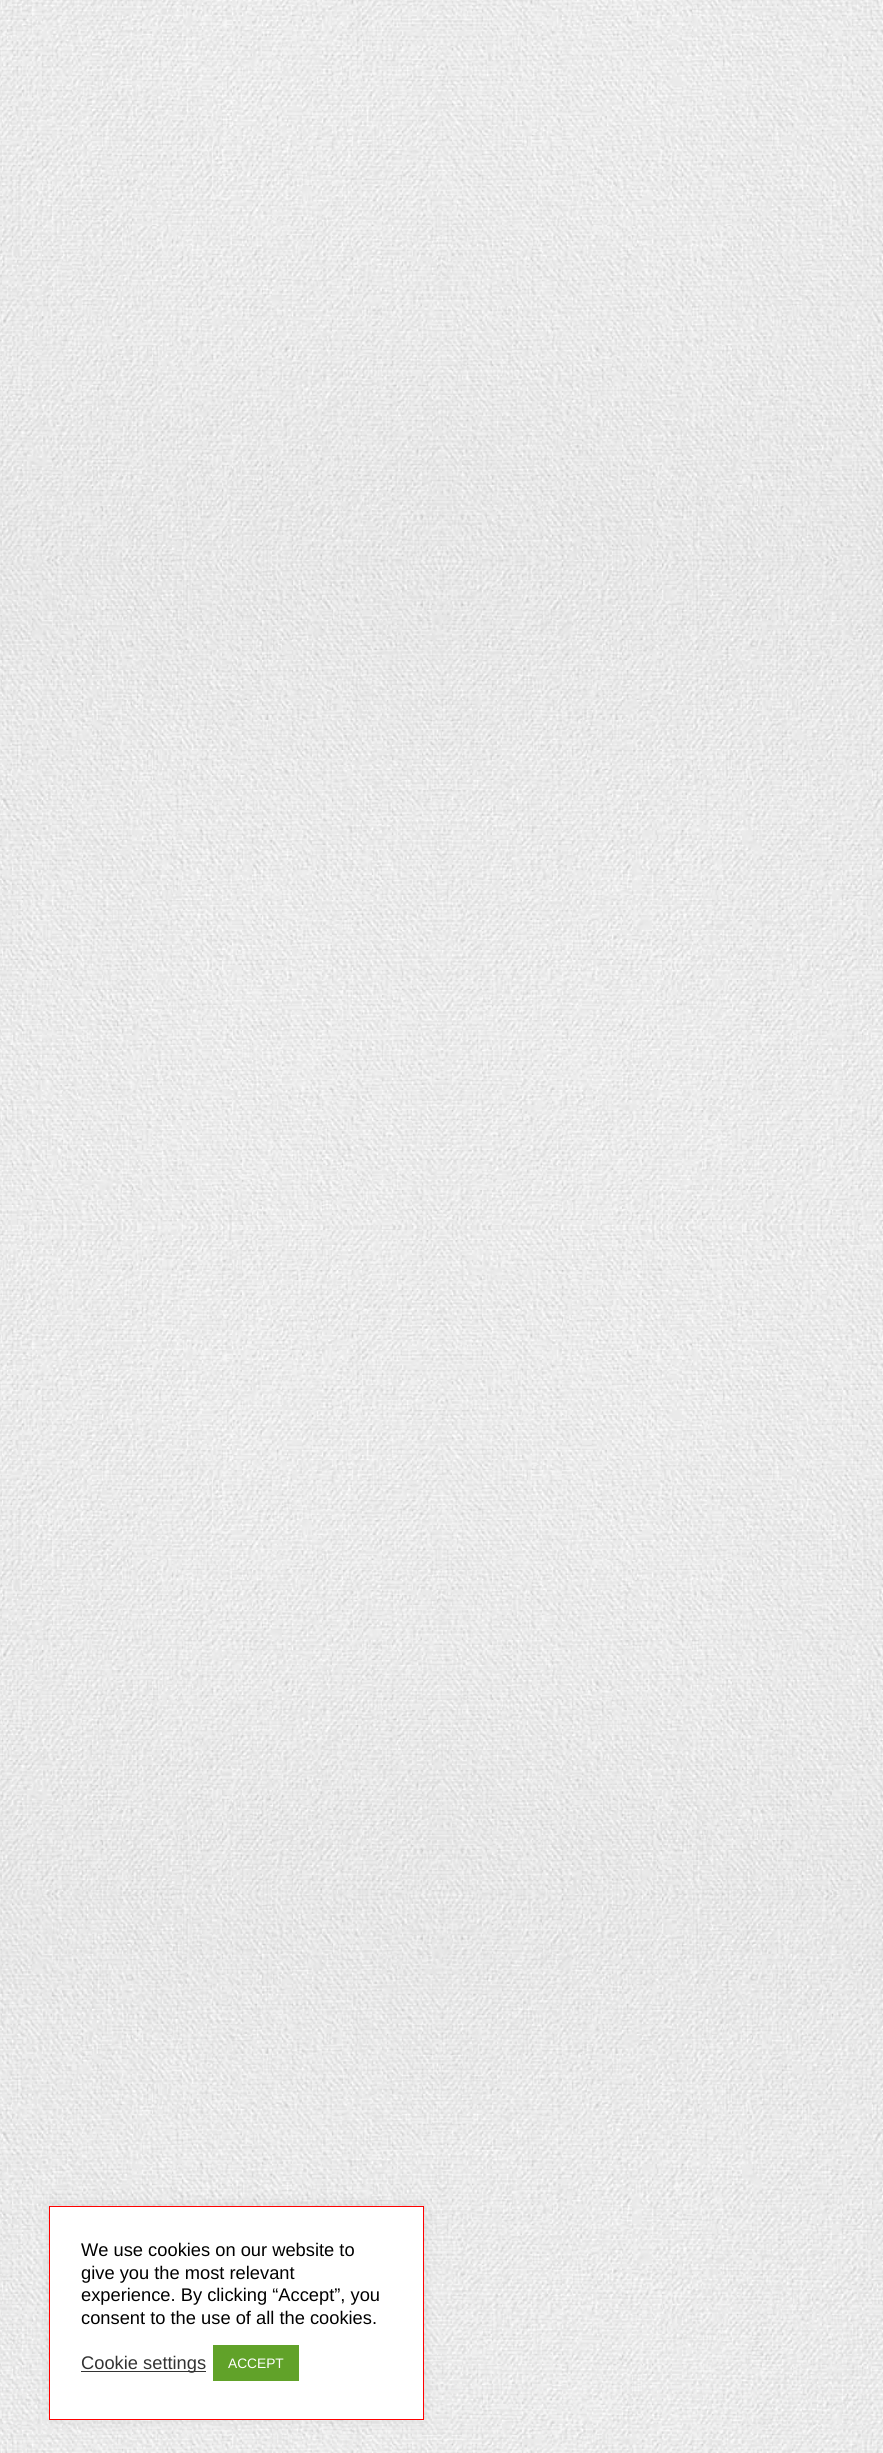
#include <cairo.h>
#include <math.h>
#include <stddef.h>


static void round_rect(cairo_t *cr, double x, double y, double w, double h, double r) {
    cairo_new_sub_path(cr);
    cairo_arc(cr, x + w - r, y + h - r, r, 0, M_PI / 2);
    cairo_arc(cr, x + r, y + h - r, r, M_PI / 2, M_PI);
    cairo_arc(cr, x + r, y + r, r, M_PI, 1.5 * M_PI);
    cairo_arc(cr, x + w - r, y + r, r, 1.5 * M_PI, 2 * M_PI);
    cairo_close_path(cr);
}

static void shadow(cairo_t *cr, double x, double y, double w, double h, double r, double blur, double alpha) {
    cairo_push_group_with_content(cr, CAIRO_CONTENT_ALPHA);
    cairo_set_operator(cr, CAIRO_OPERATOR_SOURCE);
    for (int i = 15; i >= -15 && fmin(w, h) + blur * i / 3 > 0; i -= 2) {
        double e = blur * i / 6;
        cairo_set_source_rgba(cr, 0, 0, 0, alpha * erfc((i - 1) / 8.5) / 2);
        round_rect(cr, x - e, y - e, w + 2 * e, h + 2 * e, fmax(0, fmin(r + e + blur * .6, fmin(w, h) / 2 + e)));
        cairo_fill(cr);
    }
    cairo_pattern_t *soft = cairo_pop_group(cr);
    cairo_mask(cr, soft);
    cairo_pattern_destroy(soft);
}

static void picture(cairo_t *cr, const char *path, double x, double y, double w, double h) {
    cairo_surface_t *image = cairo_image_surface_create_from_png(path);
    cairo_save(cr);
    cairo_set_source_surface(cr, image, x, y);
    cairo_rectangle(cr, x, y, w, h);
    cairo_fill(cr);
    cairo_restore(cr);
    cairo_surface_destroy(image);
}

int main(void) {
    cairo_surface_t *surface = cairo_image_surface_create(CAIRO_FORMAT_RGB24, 883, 2453);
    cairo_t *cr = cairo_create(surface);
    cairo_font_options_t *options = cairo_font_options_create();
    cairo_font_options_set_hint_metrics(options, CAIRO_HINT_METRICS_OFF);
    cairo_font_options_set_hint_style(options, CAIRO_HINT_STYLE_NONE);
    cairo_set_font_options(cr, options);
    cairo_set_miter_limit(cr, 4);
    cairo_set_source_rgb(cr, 1, 1, 1);
    cairo_paint(cr);
    picture(cr, "img1.png", 0, 0, 883, 2453);
    cairo_set_source_rgb(cr, 0.675, 0.671, 0.671);
    shadow(cr, 49, 2205, 375, 214, 0, 6, 0.3);
    cairo_set_source_rgb(cr, 1, 1, 1);
    cairo_rectangle(cr, 49.5, 2206.5, 374, 213);
    cairo_fill_preserve(cr);
    cairo_set_source_rgb(cr, 1, 0, 0);
    cairo_set_line_width(cr, 1);
    cairo_stroke(cr);
    cairo_select_font_face(cr, "Liberation Sans", CAIRO_FONT_SLANT_NORMAL, CAIRO_FONT_WEIGHT_NORMAL);
    cairo_set_font_size(cr, 18.3);
    cairo_set_source_rgb(cr, 0, 0, 0);
    cairo_move_to(cr, 81, 2256);
    cairo_show_text(cr, "We use cookies on our website to");
    cairo_move_to(cr, 81, 2279);
    cairo_show_text(cr, "give you the most relevant");
    cairo_move_to(cr, 81, 2301);
    cairo_show_text(cr, "experience. By clicking “Accept”, you");
    cairo_move_to(cr, 81, 2324);
    cairo_show_text(cr, "consent to the use of all the cookies.");
    cairo_set_source_rgb(cr, 0.2, 0.2, 0.2);
    cairo_rectangle(cr, 81, 2371, 125, 1);
    cairo_fill(cr);
    cairo_move_to(cr, 81, 2369);
    cairo_show_text(cr, "Cookie settings");
    cairo_set_source_rgb(cr, 0.38, 0.635, 0.161);
    cairo_rectangle(cr, 213, 2345, 86, 36);
    cairo_fill(cr);
    cairo_set_font_size(cr, 13.75);
    cairo_set_source_rgb(cr, 1, 1, 1);
    cairo_move_to(cr, 228, 2368);
    cairo_show_text(cr, "ACCEPT");
    cairo_surface_write_to_png(surface, "page.png");
    cairo_font_options_destroy(options);
    cairo_destroy(cr);
    cairo_surface_destroy(surface);
    return 0;
}
